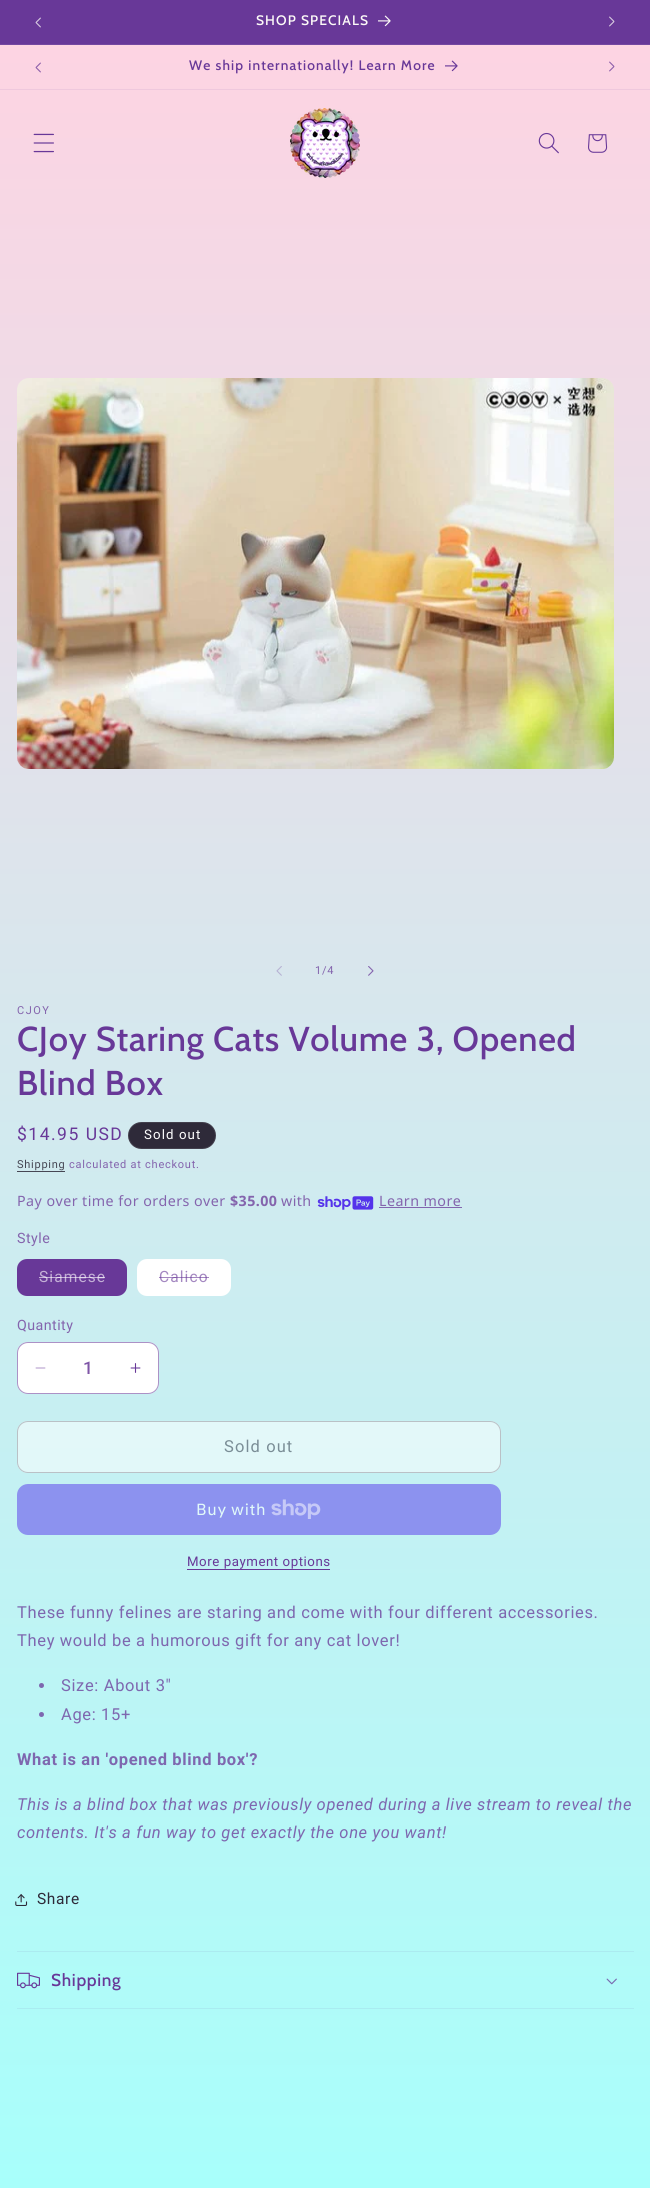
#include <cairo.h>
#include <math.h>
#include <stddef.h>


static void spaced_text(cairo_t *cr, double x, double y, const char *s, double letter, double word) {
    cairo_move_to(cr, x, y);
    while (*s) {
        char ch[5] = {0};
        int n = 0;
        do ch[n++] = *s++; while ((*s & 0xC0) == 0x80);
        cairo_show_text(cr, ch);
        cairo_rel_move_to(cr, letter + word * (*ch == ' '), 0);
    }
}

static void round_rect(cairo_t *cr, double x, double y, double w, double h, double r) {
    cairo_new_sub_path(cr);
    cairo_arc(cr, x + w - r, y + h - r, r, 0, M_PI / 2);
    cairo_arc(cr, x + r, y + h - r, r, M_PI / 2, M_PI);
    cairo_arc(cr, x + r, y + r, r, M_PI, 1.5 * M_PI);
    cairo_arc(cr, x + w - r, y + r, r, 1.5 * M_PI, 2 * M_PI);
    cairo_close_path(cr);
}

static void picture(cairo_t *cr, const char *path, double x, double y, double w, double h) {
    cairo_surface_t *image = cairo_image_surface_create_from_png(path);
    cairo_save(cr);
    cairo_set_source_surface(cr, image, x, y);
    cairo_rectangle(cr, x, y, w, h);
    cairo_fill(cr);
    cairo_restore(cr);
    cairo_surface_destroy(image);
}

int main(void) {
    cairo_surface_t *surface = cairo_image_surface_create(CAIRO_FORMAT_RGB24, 650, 2189);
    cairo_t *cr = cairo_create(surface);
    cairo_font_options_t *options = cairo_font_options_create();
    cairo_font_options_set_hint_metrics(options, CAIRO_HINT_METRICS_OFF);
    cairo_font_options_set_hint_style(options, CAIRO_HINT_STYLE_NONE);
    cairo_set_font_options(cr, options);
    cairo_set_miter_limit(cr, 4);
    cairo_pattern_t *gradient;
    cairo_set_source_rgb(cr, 1, 1, 1);
    cairo_paint(cr);
    gradient = cairo_pattern_create_linear(325, 0, 325, 2189);
    cairo_pattern_add_color_stop_rgba(gradient, 0, 1, 0.827, 0.886, 1);
    cairo_pattern_add_color_stop_rgba(gradient, 1, 0.659, 1, 0.984, 1);
    cairo_set_source(cr, gradient);
    cairo_pattern_destroy(gradient);
    cairo_rectangle(cr, 0, 45, 650, 2143);
    cairo_fill(cr);
    cairo_set_source_rgb(cr, 0.408, 0.22, 0.596);
    cairo_rectangle(cr, 0, 0, 650, 44);
    cairo_fill(cr);
    cairo_set_source_rgb(cr, 0.455, 0.282, 0.627);
    cairo_rectangle(cr, 0, 44, 650, 1);
    cairo_fill(cr);
    picture(cr, "img1.png", 35, 17, 6, 11);
    cairo_select_font_face(cr, "Cabin Medium", CAIRO_FONT_SLANT_NORMAL, CAIRO_FONT_WEIGHT_NORMAL);
    cairo_set_font_size(cr, 13.75);
    cairo_set_source_rgb(cr, 0.992, 0.984, 0.969);
    spaced_text(cr, 256, 25, "SHOP SPECIALS", 1.1, 0);
    picture(cr, "img2.png", 378, 15, 13, 12);
    picture(cr, "img3.png", 609, 16, 6, 11);
    cairo_set_source_rgb(cr, 0.937, 0.784, 0.867);
    cairo_rectangle(cr, 0, 89, 650, 1);
    cairo_fill(cr);
    picture(cr, "img4.png", 35, 62, 6, 11);
    cairo_set_source_rgb(cr, 0.408, 0.22, 0.596);
    spaced_text(cr, 189, 70, "We ship internationally! Learn More", 1.1, 0);
    picture(cr, "img5.png", 445, 60, 13, 12);
    picture(cr, "img6.png", 609, 61, 6, 11);
    picture(cr, "img7.png", 33, 133, 21, 20);
    picture(cr, "img8.png", 290, 108, 70, 70);
    picture(cr, "img9.png", 538, 132, 21, 22);
    picture(cr, "img10.png", 588, 134, 20, 19);
    picture(cr, "img11.png", 17, 378, 597, 391);
    picture(cr, "img12.png", 276, 966, 6, 10);
    cairo_select_font_face(cr, "Roboto", CAIRO_FONT_SLANT_NORMAL, CAIRO_FONT_WEIGHT_NORMAL);
    cairo_set_font_size(cr, 11);
    cairo_set_source_rgb(cr, 0.518, 0.392, 0.678);
    spaced_text(cr, 315, 974, "1/4", 0.75, 0);
    picture(cr, "img13.png", 368, 966, 6, 10);
    spaced_text(cr, 17, 1014, "CJOY", 1.5, 0);
    cairo_select_font_face(cr, "Cabin Medium", CAIRO_FONT_SLANT_NORMAL, CAIRO_FONT_WEIGHT_NORMAL);
    cairo_set_font_size(cr, 34.5);
    cairo_set_source_rgb(cr, 0.408, 0.22, 0.596);
    spaced_text(cr, 17, 1051, "CJoy Staring Cats Volume 3, Opened", 0.7, 0);
    spaced_text(cr, 17, 1095, "Blind Box", 0.7, 0);
    cairo_select_font_face(cr, "Roboto", CAIRO_FONT_SLANT_NORMAL, CAIRO_FONT_WEIGHT_NORMAL);
    cairo_set_font_size(cr, 17.5);
    spaced_text(cr, 17, 1140, "$14.95 USD", 1.5, 0);
    cairo_set_source_rgb(cr, 0.18, 0.165, 0.224);
    round_rect(cr, 128, 1122, 88, 27, 13.5);
    cairo_fill(cr);
    round_rect(cr, 128.5, 1122.5, 87, 26, 13);
    cairo_set_source_rgba(cr, 1, 1, 1, 0.1);
    cairo_set_line_width(cr, 1);
    cairo_stroke(cr);
    cairo_set_font_size(cr, 13.25);
    cairo_set_source_rgb(cr, 1, 1, 1);
    spaced_text(cr, 144, 1139, "Sold out", 1.1, 0);
    cairo_set_font_size(cr, 11);
    cairo_set_source_rgb(cr, 0.275, 0.278, 0.329);
    spaced_text(cr, 17, 1168, "Shipping", 0.75, 0);
    cairo_rectangle(cr, 17, 1171, 48, 1);
    cairo_fill(cr);
    cairo_set_source_rgb(cr, 0.518, 0.392, 0.678);
    spaced_text(cr, 69, 1168, "calculated at checkout.", 0.75, 0);
    cairo_select_font_face(cr, "Noto Sans", CAIRO_FONT_SLANT_NORMAL, CAIRO_FONT_WEIGHT_NORMAL);
    cairo_set_font_size(cr, 14.25);
    spaced_text(cr, 17, 1206, "Pay over time for orders over", 0.45, 0);
    cairo_select_font_face(cr, "Noto Sans", CAIRO_FONT_SLANT_NORMAL, CAIRO_FONT_WEIGHT_BOLD);
    spaced_text(cr, 230, 1206, "$35.00", 0.45, 0);
    cairo_select_font_face(cr, "Noto Sans", CAIRO_FONT_SLANT_NORMAL, CAIRO_FONT_WEIGHT_NORMAL);
    spaced_text(cr, 281, 1206, "with", 0.45, 0);
    picture(cr, "img14.png", 317, 1196, 57, 14);
    spaced_text(cr, 379, 1206, "Learn more", 0.45, 0);
    cairo_set_source_rgb(cr, 0.51, 0.396, 0.682);
    cairo_rectangle(cr, 379, 1207, 83, 1);
    cairo_fill(cr);
    cairo_select_font_face(cr, "Roboto", CAIRO_FONT_SLANT_NORMAL, CAIRO_FONT_WEIGHT_NORMAL);
    cairo_set_source_rgb(cr, 0.518, 0.392, 0.678);
    spaced_text(cr, 17, 1243, "Style", 0.45, 0);
    cairo_set_source_rgb(cr, 0.408, 0.22, 0.596);
    round_rect(cr, 17, 1259, 110, 37, 10);
    cairo_fill(cr);
    cairo_set_font_size(cr, 15.5);
    cairo_set_source_rgb(cr, 0.765, 0.686, 0.839);
    spaced_text(cr, 39, 1282, "Siamese", 1.1, 0);
    cairo_set_source_rgba(cr, 1, 1, 1, 0.6);
    cairo_rectangle(cr, 39, 1277, 66, 1);
    cairo_fill(cr);
    cairo_set_source_rgb(cr, 1, 1, 1);
    round_rect(cr, 137, 1259, 94, 37, 10);
    cairo_fill(cr);
    cairo_set_source_rgb(cr, 0.643, 0.533, 0.757);
    spaced_text(cr, 159, 1282, "Calico", 1.1, 0);
    cairo_set_source_rgba(cr, 0.408, 0.22, 0.596, 0.6);
    cairo_rectangle(cr, 159, 1277, 50, 1);
    cairo_fill(cr);
    cairo_set_font_size(cr, 14.25);
    cairo_set_source_rgb(cr, 0.518, 0.392, 0.678);
    spaced_text(cr, 17, 1330, "Quantity", 0.45, 0);
    cairo_set_source_rgb(cr, 1, 1, 1);
    round_rect(cr, 17, 1342, 142, 52, 11);
    cairo_fill(cr);
    picture(cr, "img15.png", 35, 1367, 11, 2);
    picture(cr, "img16.png", 130, 1363, 11, 10);
    round_rect(cr, 17.5, 1342.5, 141, 51, 10.5);
    cairo_set_source_rgba(cr, 0.408, 0.22, 0.596, 0.55);
    cairo_stroke(cr);
    cairo_select_font_face(cr, "Roboto Medium", CAIRO_FONT_SLANT_NORMAL, CAIRO_FONT_WEIGHT_NORMAL);
    cairo_set_font_size(cr, 17.5);
    cairo_set_source_rgb(cr, 0.498, 0.337, 0.655);
    cairo_move_to(cr, 83, 1374);
    cairo_show_text(cr, "1");
    cairo_set_source_rgba(cr, 1, 1, 1, 0.5);
    round_rect(cr, 17, 1421, 484, 52, 11);
    cairo_fill(cr);
    round_rect(cr, 17.5, 1421.5, 483, 51, 10.5);
    cairo_stroke(cr);
    round_rect(cr, 17.5, 1421.5, 483, 51, 10.5);
    cairo_set_source_rgba(cr, 0.18, 0.165, 0.224, 0.28);
    cairo_stroke(cr);
    cairo_select_font_face(cr, "Roboto", CAIRO_FONT_SLANT_NORMAL, CAIRO_FONT_WEIGHT_NORMAL);
    cairo_set_font_size(cr, 16.5);
    cairo_set_source_rgb(cr, 0.478, 0.553, 0.588);
    spaced_text(cr, 224, 1452, "Sold out", 1.1, 0);
    cairo_set_source_rgb(cr, 0.549, 0.573, 0.937);
    round_rect(cr, 17, 1484, 484, 51, 11);
    cairo_fill(cr);
    cairo_select_font_face(cr, "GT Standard", CAIRO_FONT_SLANT_NORMAL, CAIRO_FONT_WEIGHT_NORMAL);
    cairo_set_font_size(cr, 16);
    cairo_set_source_rgb(cr, 0.882, 0.973, 0.976);
    spaced_text(cr, 196, 1515, "Buy with", 0.65, 0);
    picture(cr, "img17.png", 271, 1499, 50, 20);
    cairo_select_font_face(cr, "Roboto", CAIRO_FONT_SLANT_NORMAL, CAIRO_FONT_WEIGHT_NORMAL);
    cairo_set_font_size(cr, 13.25);
    cairo_set_source_rgb(cr, 0.408, 0.22, 0.596);
    spaced_text(cr, 187, 1566, "More payment options", 0.55, 0);
    cairo_rectangle(cr, 187, 1569, 143, 1);
    cairo_fill(cr);
    cairo_set_font_size(cr, 16.5);
    cairo_set_source_rgb(cr, 0.494, 0.404, 0.686);
    spaced_text(cr, 17, 1618, "These funny felines are staring and come with four different accessories.", 0.65, 0);
    spaced_text(cr, 17, 1646, "They would be a humorous gift for any cat lover!", 0.65, 0);
    cairo_set_source_rgb(cr, 0.49, 0.404, 0.686);
    cairo_new_path(cr);
    cairo_arc(cr, 41.5, 1685.5, 2.5, 0, 2 * M_PI);
    cairo_fill(cr);
    cairo_set_source_rgb(cr, 0.494, 0.404, 0.686);
    spaced_text(cr, 61, 1691, "Size: About 3\"", 0.65, 0);
    cairo_set_source_rgb(cr, 0.49, 0.404, 0.69);
    cairo_new_path(cr);
    cairo_arc(cr, 41.5, 1714.5, 2.5, 0, 2 * M_PI);
    cairo_fill(cr);
    cairo_set_source_rgb(cr, 0.494, 0.404, 0.686);
    spaced_text(cr, 61, 1720, "Age: 15+", 0.65, 0);
    cairo_select_font_face(cr, "Roboto", CAIRO_FONT_SLANT_NORMAL, CAIRO_FONT_WEIGHT_BOLD);
    spaced_text(cr, 17, 1765, "What is an 'opened blind box'?", 0.65, 0);
    cairo_select_font_face(cr, "Roboto", CAIRO_FONT_SLANT_ITALIC, CAIRO_FONT_WEIGHT_NORMAL);
    spaced_text(cr, 17, 1810, "This is a blind box that was previously opened during a live stream to reveal the", 0.65, 0);
    spaced_text(cr, 17, 1838, "contents. It's a fun way to get exactly the one you want!", 0.65, 0);
    picture(cr, "img18.png", 15, 1894, 13, 12);
    cairo_select_font_face(cr, "Roboto", CAIRO_FONT_SLANT_NORMAL, CAIRO_FONT_WEIGHT_NORMAL);
    cairo_set_font_size(cr, 15.5);
    cairo_set_source_rgb(cr, 0.18, 0.165, 0.224);
    spaced_text(cr, 37, 1904, "Share", 0.65, 0);
    cairo_set_source_rgb(cr, 0.671, 0.918, 0.941);
    cairo_rectangle(cr, 17, 1951, 617, 1);
    cairo_fill(cr);
    cairo_set_source_rgb(cr, 0.663, 0.922, 0.945);
    cairo_rectangle(cr, 17, 2008, 617, 1);
    cairo_fill(cr);
    picture(cr, "img19.png", 17, 1972, 23, 17);
    cairo_select_font_face(cr, "Cabin Medium", CAIRO_FONT_SLANT_NORMAL, CAIRO_FONT_WEIGHT_NORMAL);
    cairo_set_font_size(cr, 17.25);
    cairo_set_source_rgb(cr, 0.408, 0.22, 0.596);
    spaced_text(cr, 51, 1986, "Shipping", 0.7, 0);
    picture(cr, "img20.png", 606, 1978, 11, 7);
    cairo_surface_write_to_png(surface, "page.png");
    cairo_font_options_destroy(options);
    cairo_destroy(cr);
    cairo_surface_destroy(surface);
    return 0;
}
